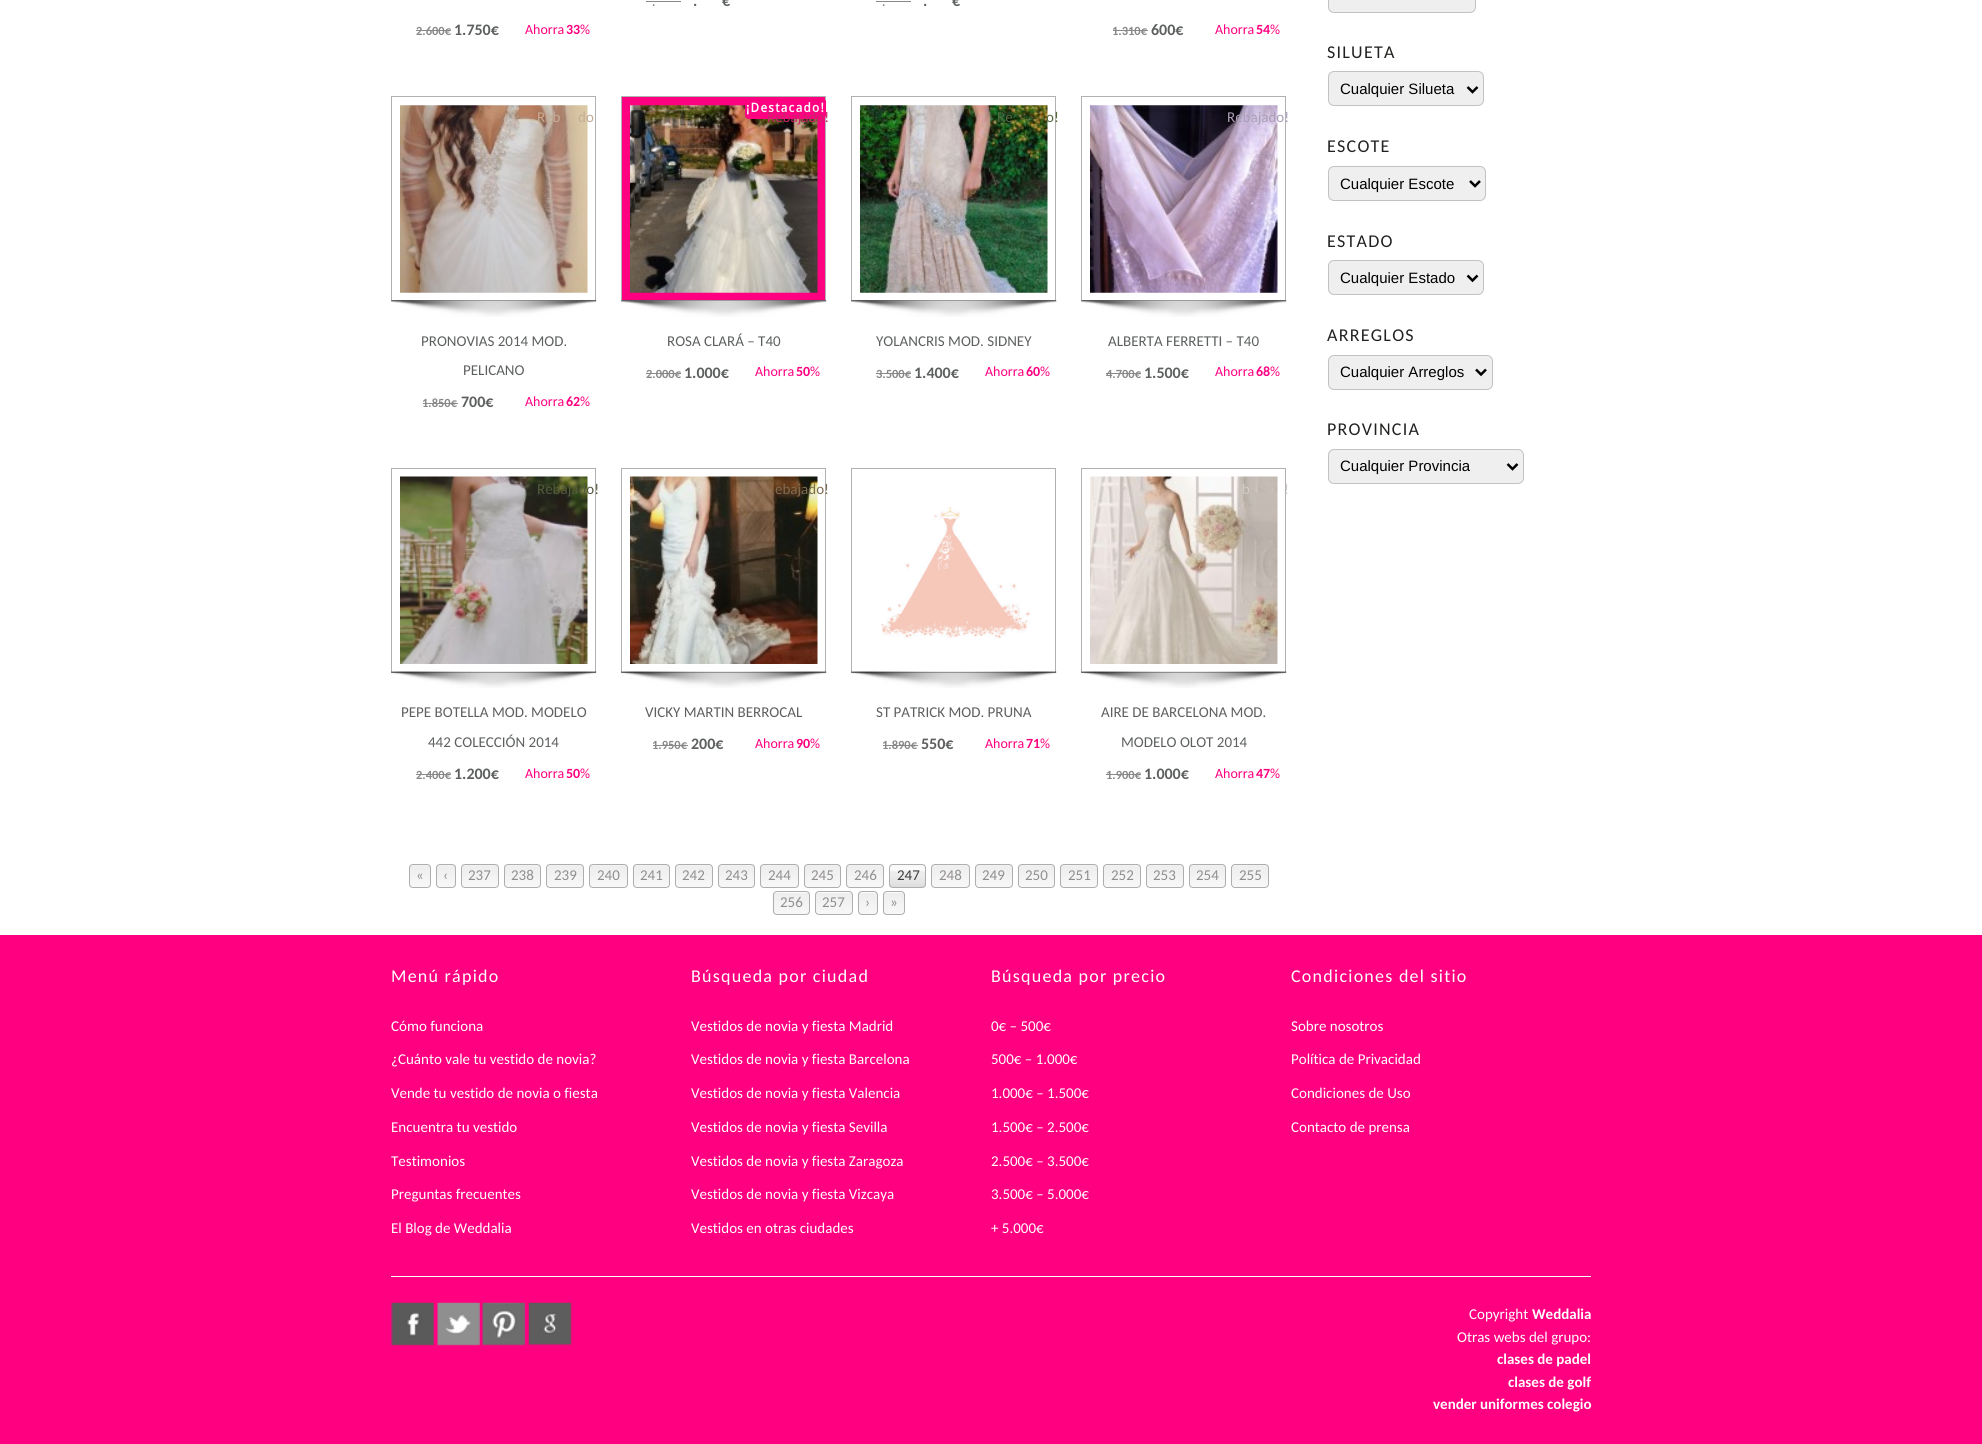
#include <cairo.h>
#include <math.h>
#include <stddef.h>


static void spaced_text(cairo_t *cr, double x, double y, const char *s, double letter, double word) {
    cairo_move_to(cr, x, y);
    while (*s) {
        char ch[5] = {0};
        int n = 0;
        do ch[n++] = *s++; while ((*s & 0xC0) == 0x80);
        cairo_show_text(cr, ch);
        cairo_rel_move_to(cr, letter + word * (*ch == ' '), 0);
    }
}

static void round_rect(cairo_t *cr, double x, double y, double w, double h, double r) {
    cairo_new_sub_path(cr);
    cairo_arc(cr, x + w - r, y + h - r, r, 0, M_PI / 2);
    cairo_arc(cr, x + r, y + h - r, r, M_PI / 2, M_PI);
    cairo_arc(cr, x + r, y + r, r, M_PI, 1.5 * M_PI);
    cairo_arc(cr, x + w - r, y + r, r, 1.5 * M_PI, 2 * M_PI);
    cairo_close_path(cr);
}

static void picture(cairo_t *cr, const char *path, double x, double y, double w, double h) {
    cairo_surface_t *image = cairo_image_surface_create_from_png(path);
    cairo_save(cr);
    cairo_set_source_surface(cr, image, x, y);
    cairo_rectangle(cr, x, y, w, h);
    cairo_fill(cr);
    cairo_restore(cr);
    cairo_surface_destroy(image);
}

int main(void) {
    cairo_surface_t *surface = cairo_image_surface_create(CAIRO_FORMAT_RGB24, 1982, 1444);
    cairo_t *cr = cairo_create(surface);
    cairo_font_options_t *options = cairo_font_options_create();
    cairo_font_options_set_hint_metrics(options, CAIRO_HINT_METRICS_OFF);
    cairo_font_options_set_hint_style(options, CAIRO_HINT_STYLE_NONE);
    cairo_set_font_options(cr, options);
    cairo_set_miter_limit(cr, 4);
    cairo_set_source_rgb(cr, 1, 1, 1);
    cairo_paint(cr);
    cairo_select_font_face(cr, "Carlito", CAIRO_FONT_SLANT_NORMAL, CAIRO_FONT_WEIGHT_BOLD);
    cairo_set_font_size(cr, 12.5);
    cairo_set_source_rgb(cr, 0.533, 0.533, 0.533);
    cairo_move_to(cr, 652, 6);
    cairo_show_text(cr, ".");
    cairo_rectangle(cr, 646, 1, 35, 1);
    cairo_fill(cr);
    cairo_set_font_size(cr, 16);
    cairo_set_source_rgb(cr, 0.369, 0.376, 0.376);
    cairo_move_to(cr, 693, 6);
    cairo_show_text(cr, ".");
    cairo_move_to(cr, 722, 6);
    cairo_show_text(cr, "€");
    cairo_set_font_size(cr, 12.5);
    cairo_set_source_rgb(cr, 0.533, 0.533, 0.533);
    cairo_move_to(cr, 882, 6);
    cairo_show_text(cr, ".");
    cairo_rectangle(cr, 876, 1, 35, 1);
    cairo_fill(cr);
    cairo_set_font_size(cr, 16);
    cairo_set_source_rgb(cr, 0.369, 0.376, 0.376);
    cairo_move_to(cr, 923, 6);
    cairo_show_text(cr, ".");
    cairo_move_to(cr, 952, 6);
    cairo_show_text(cr, "€");
    cairo_set_font_size(cr, 12.5);
    cairo_set_source_rgb(cr, 0.533, 0.533, 0.533);
    cairo_move_to(cr, 416, 35);
    cairo_show_text(cr, "2.600€");
    cairo_rectangle(cr, 416, 30, 35, 1);
    cairo_fill(cr);
    cairo_set_font_size(cr, 16);
    cairo_set_source_rgb(cr, 0.369, 0.376, 0.376);
    cairo_move_to(cr, 454, 35);
    cairo_show_text(cr, "1.750€");
    cairo_select_font_face(cr, "Carlito", CAIRO_FONT_SLANT_NORMAL, CAIRO_FONT_WEIGHT_NORMAL);
    cairo_set_font_size(cr, 14);
    cairo_set_source_rgb(cr, 1, 0, 0.502);
    cairo_move_to(cr, 525, 34);
    cairo_show_text(cr, "Ahorra");
    cairo_select_font_face(cr, "Carlito", CAIRO_FONT_SLANT_NORMAL, CAIRO_FONT_WEIGHT_BOLD);
    cairo_move_to(cr, 566, 34);
    cairo_show_text(cr, "33");
    cairo_select_font_face(cr, "Carlito", CAIRO_FONT_SLANT_NORMAL, CAIRO_FONT_WEIGHT_NORMAL);
    cairo_move_to(cr, 580, 34);
    cairo_show_text(cr, "%");
    cairo_select_font_face(cr, "Carlito", CAIRO_FONT_SLANT_NORMAL, CAIRO_FONT_WEIGHT_BOLD);
    cairo_set_font_size(cr, 12.5);
    cairo_set_source_rgb(cr, 0.533, 0.533, 0.533);
    cairo_move_to(cr, 1112, 35);
    cairo_show_text(cr, "1.310€");
    cairo_rectangle(cr, 1113, 30, 35, 1);
    cairo_fill(cr);
    cairo_set_font_size(cr, 16);
    cairo_set_source_rgb(cr, 0.369, 0.376, 0.376);
    cairo_move_to(cr, 1151, 35);
    cairo_show_text(cr, "600€");
    cairo_select_font_face(cr, "Carlito", CAIRO_FONT_SLANT_NORMAL, CAIRO_FONT_WEIGHT_NORMAL);
    cairo_set_font_size(cr, 14);
    cairo_set_source_rgb(cr, 1, 0, 0.502);
    cairo_move_to(cr, 1215, 34);
    cairo_show_text(cr, "Ahorra");
    cairo_select_font_face(cr, "Carlito", CAIRO_FONT_SLANT_NORMAL, CAIRO_FONT_WEIGHT_BOLD);
    cairo_move_to(cr, 1256, 34);
    cairo_show_text(cr, "54");
    cairo_select_font_face(cr, "Carlito", CAIRO_FONT_SLANT_NORMAL, CAIRO_FONT_WEIGHT_NORMAL);
    cairo_move_to(cr, 1270, 34);
    cairo_show_text(cr, "%");
    cairo_rectangle(cr, 391.5, 96.5, 204, 204);
    cairo_set_source_rgb(cr, 0.698, 0.69, 0.69);
    cairo_set_line_width(cr, 1);
    cairo_stroke(cr);
    picture(cr, "img1.png", 400, 105, 188, 188);
    cairo_set_font_size(cr, 15);
    cairo_set_source_rgb(cr, 0.773, 0.675, 0.592);
    cairo_move_to(cr, 537, 122);
    cairo_show_text(cr, "Reb");
    cairo_move_to(cr, 578, 122);
    cairo_show_text(cr, "do");
    picture(cr, "img2.png", 391, 300, 206, 17);
    cairo_set_source_rgb(cr, 0.369, 0.376, 0.376);
    cairo_move_to(cr, 421, 346);
    cairo_show_text(cr, "PRONOVIAS 2014 MOD.");
    cairo_move_to(cr, 463, 375);
    cairo_show_text(cr, "PELICANO");
    cairo_select_font_face(cr, "Carlito", CAIRO_FONT_SLANT_NORMAL, CAIRO_FONT_WEIGHT_BOLD);
    cairo_set_font_size(cr, 12.5);
    cairo_set_source_rgb(cr, 0.533, 0.533, 0.533);
    cairo_move_to(cr, 422, 407);
    cairo_show_text(cr, "1.850€");
    cairo_rectangle(cr, 423, 403, 35, 1);
    cairo_fill(cr);
    cairo_set_font_size(cr, 16);
    cairo_set_source_rgb(cr, 0.369, 0.376, 0.376);
    cairo_move_to(cr, 461, 407);
    cairo_show_text(cr, "700€");
    cairo_select_font_face(cr, "Carlito", CAIRO_FONT_SLANT_NORMAL, CAIRO_FONT_WEIGHT_NORMAL);
    cairo_set_font_size(cr, 14);
    cairo_set_source_rgb(cr, 1, 0, 0.502);
    cairo_move_to(cr, 525, 406);
    cairo_show_text(cr, "Ahorra");
    cairo_select_font_face(cr, "Carlito", CAIRO_FONT_SLANT_NORMAL, CAIRO_FONT_WEIGHT_BOLD);
    cairo_move_to(cr, 566, 406);
    cairo_show_text(cr, "62");
    cairo_select_font_face(cr, "Carlito", CAIRO_FONT_SLANT_NORMAL, CAIRO_FONT_WEIGHT_NORMAL);
    cairo_move_to(cr, 580, 406);
    cairo_show_text(cr, "%");
    cairo_rectangle(cr, 621.5, 96.5, 204, 204);
    cairo_fill_preserve(cr);
    cairo_set_source_rgb(cr, 0.698, 0.69, 0.69);
    cairo_stroke(cr);
    picture(cr, "img3.png", 630, 105, 188, 188);
    cairo_set_source_rgb(cr, 1, 0, 0.502);
    round_rect(cr, 745, 98, 81, 21, 4);
    cairo_fill(cr);
    cairo_select_font_face(cr, "Droid Sans", CAIRO_FONT_SLANT_NORMAL, CAIRO_FONT_WEIGHT_BOLD);
    cairo_set_font_size(cr, 12.5);
    cairo_set_source_rgb(cr, 1, 1, 1);
    spaced_text(cr, 746, 112, "¡Destacado!", 1.25, 0);
    cairo_select_font_face(cr, "Carlito", CAIRO_FONT_SLANT_NORMAL, CAIRO_FONT_WEIGHT_NORMAL);
    cairo_set_font_size(cr, 15);
    cairo_set_source_rgb(cr, 0.776, 0.153, 0.416);
    cairo_move_to(cr, 767, 122);
    cairo_show_text(cr, "Rebajado!");
    picture(cr, "img4.png", 621, 300, 206, 17);
    cairo_set_source_rgb(cr, 0.369, 0.376, 0.376);
    cairo_move_to(cr, 667, 346);
    cairo_show_text(cr, "ROSA CLARÁ – T40");
    cairo_select_font_face(cr, "Carlito", CAIRO_FONT_SLANT_NORMAL, CAIRO_FONT_WEIGHT_BOLD);
    cairo_set_font_size(cr, 12.5);
    cairo_set_source_rgb(cr, 0.533, 0.533, 0.533);
    cairo_move_to(cr, 646, 378);
    cairo_show_text(cr, "2.000€");
    cairo_rectangle(cr, 646, 373, 35, 1);
    cairo_fill(cr);
    cairo_set_font_size(cr, 16);
    cairo_set_source_rgb(cr, 0.369, 0.376, 0.376);
    cairo_move_to(cr, 684, 378);
    cairo_show_text(cr, "1.000€");
    cairo_select_font_face(cr, "Carlito", CAIRO_FONT_SLANT_NORMAL, CAIRO_FONT_WEIGHT_NORMAL);
    cairo_set_font_size(cr, 14);
    cairo_set_source_rgb(cr, 1, 0, 0.502);
    cairo_move_to(cr, 755, 376);
    cairo_show_text(cr, "Ahorra");
    cairo_select_font_face(cr, "Carlito", CAIRO_FONT_SLANT_NORMAL, CAIRO_FONT_WEIGHT_BOLD);
    cairo_move_to(cr, 796, 376);
    cairo_show_text(cr, "50");
    cairo_select_font_face(cr, "Carlito", CAIRO_FONT_SLANT_NORMAL, CAIRO_FONT_WEIGHT_NORMAL);
    cairo_move_to(cr, 810, 376);
    cairo_show_text(cr, "%");
    cairo_rectangle(cr, 851.5, 96.5, 204, 204);
    cairo_set_source_rgb(cr, 0.698, 0.69, 0.69);
    cairo_stroke(cr);
    picture(cr, "img5.png", 860, 105, 188, 188);
    cairo_set_font_size(cr, 15);
    cairo_set_source_rgb(cr, 0.333, 0.412, 0.235);
    cairo_move_to(cr, 997, 122);
    cairo_show_text(cr, "Re");
    cairo_move_to(cr, 1046, 122);
    cairo_show_text(cr, "o!");
    picture(cr, "img6.png", 851, 300, 206, 17);
    cairo_set_source_rgb(cr, 0.369, 0.376, 0.376);
    cairo_move_to(cr, 876, 346);
    cairo_show_text(cr, "YOLANCRIS MOD. SIDNEY");
    cairo_select_font_face(cr, "Carlito", CAIRO_FONT_SLANT_NORMAL, CAIRO_FONT_WEIGHT_BOLD);
    cairo_set_font_size(cr, 12.5);
    cairo_set_source_rgb(cr, 0.533, 0.533, 0.533);
    cairo_move_to(cr, 876, 378);
    cairo_show_text(cr, "3.500€");
    cairo_rectangle(cr, 876, 373, 35, 1);
    cairo_fill(cr);
    cairo_set_font_size(cr, 16);
    cairo_set_source_rgb(cr, 0.369, 0.376, 0.376);
    cairo_move_to(cr, 914, 378);
    cairo_show_text(cr, "1.400€");
    cairo_select_font_face(cr, "Carlito", CAIRO_FONT_SLANT_NORMAL, CAIRO_FONT_WEIGHT_NORMAL);
    cairo_set_font_size(cr, 14);
    cairo_set_source_rgb(cr, 1, 0, 0.502);
    cairo_move_to(cr, 985, 376);
    cairo_show_text(cr, "Ahorra");
    cairo_select_font_face(cr, "Carlito", CAIRO_FONT_SLANT_NORMAL, CAIRO_FONT_WEIGHT_BOLD);
    cairo_move_to(cr, 1026, 376);
    cairo_show_text(cr, "60");
    cairo_select_font_face(cr, "Carlito", CAIRO_FONT_SLANT_NORMAL, CAIRO_FONT_WEIGHT_NORMAL);
    cairo_move_to(cr, 1040, 376);
    cairo_show_text(cr, "%");
    cairo_rectangle(cr, 1081.5, 96.5, 204, 204);
    cairo_set_source_rgb(cr, 0.698, 0.69, 0.69);
    cairo_stroke(cr);
    picture(cr, "img7.png", 1090, 105, 188, 188);
    cairo_set_font_size(cr, 15);
    cairo_set_source_rgb(cr, 0.667, 0.624, 0.714);
    cairo_move_to(cr, 1227, 122);
    cairo_show_text(cr, "Rebajado!");
    picture(cr, "img8.png", 1081, 300, 206, 17);
    cairo_set_source_rgb(cr, 0.369, 0.376, 0.376);
    cairo_move_to(cr, 1108, 346);
    cairo_show_text(cr, "ALBERTA FERRETTI – T40");
    cairo_select_font_face(cr, "Carlito", CAIRO_FONT_SLANT_NORMAL, CAIRO_FONT_WEIGHT_BOLD);
    cairo_set_font_size(cr, 12.5);
    cairo_set_source_rgb(cr, 0.533, 0.533, 0.533);
    cairo_move_to(cr, 1106, 378);
    cairo_show_text(cr, "4.700€");
    cairo_rectangle(cr, 1106, 373, 35, 1);
    cairo_fill(cr);
    cairo_set_font_size(cr, 16);
    cairo_set_source_rgb(cr, 0.369, 0.376, 0.376);
    cairo_move_to(cr, 1144, 378);
    cairo_show_text(cr, "1.500€");
    cairo_select_font_face(cr, "Carlito", CAIRO_FONT_SLANT_NORMAL, CAIRO_FONT_WEIGHT_NORMAL);
    cairo_set_font_size(cr, 14);
    cairo_set_source_rgb(cr, 1, 0, 0.502);
    cairo_move_to(cr, 1215, 376);
    cairo_show_text(cr, "Ahorra");
    cairo_select_font_face(cr, "Carlito", CAIRO_FONT_SLANT_NORMAL, CAIRO_FONT_WEIGHT_BOLD);
    cairo_move_to(cr, 1256, 376);
    cairo_show_text(cr, "68");
    cairo_select_font_face(cr, "Carlito", CAIRO_FONT_SLANT_NORMAL, CAIRO_FONT_WEIGHT_NORMAL);
    cairo_move_to(cr, 1270, 376);
    cairo_show_text(cr, "%");
    cairo_rectangle(cr, 391.5, 468.5, 204, 204);
    cairo_set_source_rgb(cr, 0.698, 0.69, 0.69);
    cairo_stroke(cr);
    picture(cr, "img9.png", 400, 476, 188, 188);
    cairo_set_font_size(cr, 15);
    cairo_set_source_rgb(cr, 0.325, 0.353, 0.243);
    cairo_move_to(cr, 537, 494);
    cairo_show_text(cr, "Rebajado!");
    picture(cr, "img10.png", 391, 671, 206, 17);
    cairo_set_source_rgb(cr, 0.369, 0.376, 0.376);
    cairo_move_to(cr, 401, 717);
    cairo_show_text(cr, "PEPE BOTELLA MOD. MODELO");
    cairo_move_to(cr, 428, 747);
    cairo_show_text(cr, "442 COLECCIÓN 2014");
    cairo_select_font_face(cr, "Carlito", CAIRO_FONT_SLANT_NORMAL, CAIRO_FONT_WEIGHT_BOLD);
    cairo_set_font_size(cr, 12.5);
    cairo_set_source_rgb(cr, 0.533, 0.533, 0.533);
    cairo_move_to(cr, 416, 779);
    cairo_show_text(cr, "2.400€");
    cairo_rectangle(cr, 416, 774, 35, 1);
    cairo_fill(cr);
    cairo_set_font_size(cr, 16);
    cairo_set_source_rgb(cr, 0.369, 0.376, 0.376);
    cairo_move_to(cr, 454, 779);
    cairo_show_text(cr, "1.200€");
    cairo_select_font_face(cr, "Carlito", CAIRO_FONT_SLANT_NORMAL, CAIRO_FONT_WEIGHT_NORMAL);
    cairo_set_font_size(cr, 14);
    cairo_set_source_rgb(cr, 1, 0, 0.502);
    cairo_move_to(cr, 525, 778);
    cairo_show_text(cr, "Ahorra");
    cairo_select_font_face(cr, "Carlito", CAIRO_FONT_SLANT_NORMAL, CAIRO_FONT_WEIGHT_BOLD);
    cairo_move_to(cr, 566, 778);
    cairo_show_text(cr, "50");
    cairo_select_font_face(cr, "Carlito", CAIRO_FONT_SLANT_NORMAL, CAIRO_FONT_WEIGHT_NORMAL);
    cairo_move_to(cr, 580, 778);
    cairo_show_text(cr, "%");
    cairo_rectangle(cr, 621.5, 468.5, 204, 204);
    cairo_set_source_rgb(cr, 0.698, 0.69, 0.69);
    cairo_stroke(cr);
    picture(cr, "img11.png", 630, 476, 188, 188);
    cairo_set_font_size(cr, 15);
    cairo_set_source_rgb(cr, 0.494, 0.42, 0.318);
    cairo_move_to(cr, 775, 494);
    cairo_show_text(cr, "ebajado!");
    picture(cr, "img12.png", 621, 671, 206, 17);
    cairo_set_source_rgb(cr, 0.369, 0.376, 0.376);
    cairo_move_to(cr, 645, 717);
    cairo_show_text(cr, "VICKY MARTIN BERROCAL");
    cairo_select_font_face(cr, "Carlito", CAIRO_FONT_SLANT_NORMAL, CAIRO_FONT_WEIGHT_BOLD);
    cairo_set_font_size(cr, 12.5);
    cairo_set_source_rgb(cr, 0.533, 0.533, 0.533);
    cairo_move_to(cr, 652, 749);
    cairo_show_text(cr, "1.950€");
    cairo_rectangle(cr, 653, 745, 35, 1);
    cairo_fill(cr);
    cairo_set_font_size(cr, 16);
    cairo_set_source_rgb(cr, 0.369, 0.376, 0.376);
    cairo_move_to(cr, 691, 749);
    cairo_show_text(cr, "200€");
    cairo_select_font_face(cr, "Carlito", CAIRO_FONT_SLANT_NORMAL, CAIRO_FONT_WEIGHT_NORMAL);
    cairo_set_font_size(cr, 14);
    cairo_set_source_rgb(cr, 1, 0, 0.502);
    cairo_move_to(cr, 755, 748);
    cairo_show_text(cr, "Ahorra");
    cairo_select_font_face(cr, "Carlito", CAIRO_FONT_SLANT_NORMAL, CAIRO_FONT_WEIGHT_BOLD);
    cairo_move_to(cr, 796, 748);
    cairo_show_text(cr, "90");
    cairo_select_font_face(cr, "Carlito", CAIRO_FONT_SLANT_NORMAL, CAIRO_FONT_WEIGHT_NORMAL);
    cairo_move_to(cr, 810, 748);
    cairo_show_text(cr, "%");
    cairo_rectangle(cr, 851.5, 468.5, 204, 204);
    cairo_set_source_rgb(cr, 0.698, 0.69, 0.69);
    cairo_stroke(cr);
    picture(cr, "img13.png", 881, 507, 149, 132);
    picture(cr, "img14.png", 851, 671, 206, 17);
    cairo_set_font_size(cr, 15);
    cairo_set_source_rgb(cr, 0.369, 0.376, 0.376);
    cairo_move_to(cr, 876, 717);
    cairo_show_text(cr, "ST PATRICK MOD. PRUNA");
    cairo_select_font_face(cr, "Carlito", CAIRO_FONT_SLANT_NORMAL, CAIRO_FONT_WEIGHT_BOLD);
    cairo_set_font_size(cr, 12.5);
    cairo_set_source_rgb(cr, 0.533, 0.533, 0.533);
    cairo_move_to(cr, 882, 749);
    cairo_show_text(cr, "1.890€");
    cairo_rectangle(cr, 883, 745, 35, 1);
    cairo_fill(cr);
    cairo_set_font_size(cr, 16);
    cairo_set_source_rgb(cr, 0.369, 0.376, 0.376);
    cairo_move_to(cr, 921, 749);
    cairo_show_text(cr, "550€");
    cairo_select_font_face(cr, "Carlito", CAIRO_FONT_SLANT_NORMAL, CAIRO_FONT_WEIGHT_NORMAL);
    cairo_set_font_size(cr, 14);
    cairo_set_source_rgb(cr, 1, 0, 0.502);
    cairo_move_to(cr, 985, 748);
    cairo_show_text(cr, "Ahorra");
    cairo_select_font_face(cr, "Carlito", CAIRO_FONT_SLANT_NORMAL, CAIRO_FONT_WEIGHT_BOLD);
    cairo_move_to(cr, 1026, 748);
    cairo_show_text(cr, "71");
    cairo_select_font_face(cr, "Carlito", CAIRO_FONT_SLANT_NORMAL, CAIRO_FONT_WEIGHT_NORMAL);
    cairo_move_to(cr, 1040, 748);
    cairo_show_text(cr, "%");
    cairo_rectangle(cr, 1081.5, 468.5, 204, 204);
    cairo_set_source_rgb(cr, 0.698, 0.69, 0.69);
    cairo_stroke(cr);
    picture(cr, "img15.png", 1090, 476, 188, 188);
    cairo_set_font_size(cr, 15);
    cairo_set_source_rgb(cr, 0.824, 0.796, 0.776);
    cairo_move_to(cr, 1242, 494);
    cairo_show_text(cr, "b");
    cairo_move_to(cr, 1284, 494);
    cairo_show_text(cr, "!");
    picture(cr, "img16.png", 1081, 671, 206, 17);
    cairo_set_source_rgb(cr, 0.369, 0.376, 0.376);
    cairo_move_to(cr, 1101, 717);
    cairo_show_text(cr, "AIRE DE BARCELONA MOD.");
    cairo_move_to(cr, 1121, 747);
    cairo_show_text(cr, "MODELO OLOT 2014");
    cairo_select_font_face(cr, "Carlito", CAIRO_FONT_SLANT_NORMAL, CAIRO_FONT_WEIGHT_BOLD);
    cairo_set_font_size(cr, 12.5);
    cairo_set_source_rgb(cr, 0.533, 0.533, 0.533);
    cairo_move_to(cr, 1106, 779);
    cairo_show_text(cr, "1.900€");
    cairo_rectangle(cr, 1106, 774, 35, 1);
    cairo_fill(cr);
    cairo_set_font_size(cr, 16);
    cairo_set_source_rgb(cr, 0.369, 0.376, 0.376);
    cairo_move_to(cr, 1144, 779);
    cairo_show_text(cr, "1.000€");
    cairo_select_font_face(cr, "Carlito", CAIRO_FONT_SLANT_NORMAL, CAIRO_FONT_WEIGHT_NORMAL);
    cairo_set_font_size(cr, 14);
    cairo_set_source_rgb(cr, 1, 0, 0.502);
    cairo_move_to(cr, 1215, 778);
    cairo_show_text(cr, "Ahorra");
    cairo_select_font_face(cr, "Carlito", CAIRO_FONT_SLANT_NORMAL, CAIRO_FONT_WEIGHT_BOLD);
    cairo_move_to(cr, 1256, 778);
    cairo_show_text(cr, "47");
    cairo_select_font_face(cr, "Carlito", CAIRO_FONT_SLANT_NORMAL, CAIRO_FONT_WEIGHT_NORMAL);
    cairo_move_to(cr, 1270, 778);
    cairo_show_text(cr, "%");
    picture(cr, "img17.png", 409, 865, 22, 22);
    round_rect(cr, 409.5, 864.5, 21, 23, 3.5);
    cairo_set_source_rgb(cr, 0.682, 0.682, 0.682);
    cairo_stroke(cr);
    cairo_set_font_size(cr, 15);
    cairo_set_source_rgb(cr, 0.569, 0.557, 0.557);
    cairo_move_to(cr, 416, 880);
    cairo_show_text(cr, "«");
    picture(cr, "img18.png", 436, 865, 20, 22);
    round_rect(cr, 436.5, 864.5, 19, 23, 3.5);
    cairo_set_source_rgb(cr, 0.682, 0.682, 0.682);
    cairo_stroke(cr);
    cairo_set_source_rgb(cr, 0.569, 0.557, 0.557);
    cairo_move_to(cr, 443, 880);
    cairo_show_text(cr, "‹");
    picture(cr, "img19.png", 461, 865, 38, 22);
    round_rect(cr, 461.5, 864.5, 37, 23, 3.5);
    cairo_set_source_rgb(cr, 0.682, 0.682, 0.682);
    cairo_stroke(cr);
    cairo_set_source_rgb(cr, 0.569, 0.557, 0.557);
    cairo_move_to(cr, 468, 880);
    cairo_show_text(cr, "237");
    picture(cr, "img20.png", 504, 865, 37, 22);
    round_rect(cr, 504.5, 864.5, 36, 23, 3.5);
    cairo_set_source_rgb(cr, 0.682, 0.682, 0.682);
    cairo_stroke(cr);
    cairo_set_source_rgb(cr, 0.569, 0.557, 0.557);
    cairo_move_to(cr, 511, 880);
    cairo_show_text(cr, "238");
    picture(cr, "img19.png", 546, 865, 38, 22);
    round_rect(cr, 546.5, 864.5, 37, 23, 3.5);
    cairo_set_source_rgb(cr, 0.682, 0.682, 0.682);
    cairo_stroke(cr);
    cairo_set_source_rgb(cr, 0.569, 0.557, 0.557);
    cairo_move_to(cr, 554, 880);
    cairo_show_text(cr, "239");
    picture(cr, "img21.png", 589, 865, 39, 22);
    round_rect(cr, 589.5, 864.5, 38, 23, 3.5);
    cairo_set_source_rgb(cr, 0.682, 0.682, 0.682);
    cairo_stroke(cr);
    cairo_set_source_rgb(cr, 0.569, 0.557, 0.557);
    cairo_move_to(cr, 597, 880);
    cairo_show_text(cr, "240");
    picture(cr, "img22.png", 632, 865, 38, 22);
    round_rect(cr, 633.5, 864.5, 36, 23, 3.5);
    cairo_set_source_rgb(cr, 0.682, 0.682, 0.682);
    cairo_stroke(cr);
    cairo_set_source_rgb(cr, 0.569, 0.557, 0.557);
    cairo_move_to(cr, 640, 880);
    cairo_show_text(cr, "241");
    picture(cr, "img23.png", 675, 865, 38, 22);
    round_rect(cr, 675.5, 864.5, 37, 23, 3.5);
    cairo_set_source_rgb(cr, 0.682, 0.682, 0.682);
    cairo_stroke(cr);
    cairo_set_source_rgb(cr, 0.569, 0.557, 0.557);
    cairo_move_to(cr, 682, 880);
    cairo_show_text(cr, "242");
    picture(cr, "img22.png", 717, 865, 38, 22);
    round_rect(cr, 718.5, 864.5, 36, 23, 3.5);
    cairo_set_source_rgb(cr, 0.682, 0.682, 0.682);
    cairo_stroke(cr);
    cairo_set_source_rgb(cr, 0.569, 0.557, 0.557);
    cairo_move_to(cr, 725, 880);
    cairo_show_text(cr, "243");
    picture(cr, "img24.png", 760, 865, 39, 22);
    round_rect(cr, 760.5, 864.5, 38, 23, 3.5);
    cairo_set_source_rgb(cr, 0.682, 0.682, 0.682);
    cairo_stroke(cr);
    cairo_set_source_rgb(cr, 0.569, 0.557, 0.557);
    cairo_move_to(cr, 768, 880);
    cairo_show_text(cr, "244");
    picture(cr, "img20.png", 804, 865, 37, 22);
    round_rect(cr, 804.5, 864.5, 36, 23, 3.5);
    cairo_set_source_rgb(cr, 0.682, 0.682, 0.682);
    cairo_stroke(cr);
    cairo_set_source_rgb(cr, 0.569, 0.557, 0.557);
    cairo_move_to(cr, 811, 880);
    cairo_show_text(cr, "245");
    picture(cr, "img19.png", 846, 865, 38, 22);
    round_rect(cr, 846.5, 864.5, 37, 23, 3.5);
    cairo_set_source_rgb(cr, 0.682, 0.682, 0.682);
    cairo_stroke(cr);
    cairo_set_source_rgb(cr, 0.569, 0.557, 0.557);
    cairo_move_to(cr, 854, 880);
    cairo_show_text(cr, "246");
    picture(cr, "img25.png", 889, 864, 37, 24);
    round_rect(cr, 889.5, 864.5, 36, 23, 3.5);
    cairo_set_source_rgb(cr, 0.682, 0.682, 0.682);
    cairo_stroke(cr);
    cairo_set_source_rgb(cr, 0.243, 0.235, 0.235);
    cairo_move_to(cr, 897, 880);
    cairo_show_text(cr, "247");
    picture(cr, "img26.png", 931, 865, 39, 22);
    round_rect(cr, 931.5, 864.5, 38, 23, 3.5);
    cairo_set_source_rgb(cr, 0.682, 0.682, 0.682);
    cairo_stroke(cr);
    cairo_set_source_rgb(cr, 0.569, 0.557, 0.557);
    cairo_move_to(cr, 939, 880);
    cairo_show_text(cr, "248");
    picture(cr, "img23.png", 975, 865, 38, 22);
    round_rect(cr, 975.5, 864.5, 37, 23, 3.5);
    cairo_set_source_rgb(cr, 0.682, 0.682, 0.682);
    cairo_stroke(cr);
    cairo_set_source_rgb(cr, 0.569, 0.557, 0.557);
    cairo_move_to(cr, 982, 880);
    cairo_show_text(cr, "249");
    picture(cr, "img22.png", 1017, 865, 38, 22);
    round_rect(cr, 1018.5, 864.5, 36, 23, 3.5);
    cairo_set_source_rgb(cr, 0.682, 0.682, 0.682);
    cairo_stroke(cr);
    cairo_set_source_rgb(cr, 0.569, 0.557, 0.557);
    cairo_move_to(cr, 1025, 880);
    cairo_show_text(cr, "250");
    picture(cr, "img23.png", 1060, 865, 38, 22);
    round_rect(cr, 1060.5, 864.5, 37, 23, 3.5);
    cairo_set_source_rgb(cr, 0.682, 0.682, 0.682);
    cairo_stroke(cr);
    cairo_set_source_rgb(cr, 0.569, 0.557, 0.557);
    cairo_move_to(cr, 1068, 880);
    cairo_show_text(cr, "251");
    picture(cr, "img27.png", 1102, 865, 39, 22);
    round_rect(cr, 1103.5, 864.5, 37, 23, 3.5);
    cairo_set_source_rgb(cr, 0.682, 0.682, 0.682);
    cairo_stroke(cr);
    cairo_set_source_rgb(cr, 0.569, 0.557, 0.557);
    cairo_move_to(cr, 1111, 880);
    cairo_show_text(cr, "252");
    picture(cr, "img19.png", 1146, 865, 38, 22);
    round_rect(cr, 1146.5, 864.5, 37, 23, 3.5);
    cairo_set_source_rgb(cr, 0.682, 0.682, 0.682);
    cairo_stroke(cr);
    cairo_set_source_rgb(cr, 0.569, 0.557, 0.557);
    cairo_move_to(cr, 1153, 880);
    cairo_show_text(cr, "253");
    picture(cr, "img20.png", 1189, 865, 37, 22);
    round_rect(cr, 1189.5, 864.5, 36, 23, 3.5);
    cairo_set_source_rgb(cr, 0.682, 0.682, 0.682);
    cairo_stroke(cr);
    cairo_set_source_rgb(cr, 0.569, 0.557, 0.557);
    cairo_move_to(cr, 1196, 880);
    cairo_show_text(cr, "254");
    picture(cr, "img19.png", 1231, 865, 38, 22);
    round_rect(cr, 1231.5, 864.5, 37, 23, 3.5);
    cairo_set_source_rgb(cr, 0.682, 0.682, 0.682);
    cairo_stroke(cr);
    cairo_set_source_rgb(cr, 0.569, 0.557, 0.557);
    cairo_move_to(cr, 1239, 880);
    cairo_show_text(cr, "255");
    picture(cr, "img28.png", 772, 892, 38, 23);
    round_rect(cr, 773.5, 891.5, 36, 23, 3.5);
    cairo_set_source_rgb(cr, 0.682, 0.682, 0.682);
    cairo_stroke(cr);
    cairo_set_source_rgb(cr, 0.569, 0.557, 0.557);
    cairo_move_to(cr, 780, 907);
    cairo_show_text(cr, "256");
    picture(cr, "img29.png", 815, 892, 38, 23);
    round_rect(cr, 815.5, 891.5, 37, 23, 3.5);
    cairo_set_source_rgb(cr, 0.682, 0.682, 0.682);
    cairo_stroke(cr);
    cairo_set_source_rgb(cr, 0.569, 0.557, 0.557);
    cairo_move_to(cr, 822, 907);
    cairo_show_text(cr, "257");
    picture(cr, "img30.png", 857, 892, 21, 23);
    round_rect(cr, 858.5, 891.5, 19, 23, 3.5);
    cairo_set_source_rgb(cr, 0.682, 0.682, 0.682);
    cairo_stroke(cr);
    cairo_set_source_rgb(cr, 0.569, 0.557, 0.557);
    cairo_move_to(cr, 865, 907);
    cairo_show_text(cr, "›");
    picture(cr, "img31.png", 882, 892, 23, 23);
    round_rect(cr, 883.5, 891.5, 21, 23, 3.5);
    cairo_set_source_rgb(cr, 0.682, 0.682, 0.682);
    cairo_stroke(cr);
    cairo_set_source_rgb(cr, 0.569, 0.557, 0.557);
    cairo_move_to(cr, 890, 907);
    cairo_show_text(cr, "»");
    cairo_set_source_rgb(cr, 0.937, 0.937, 0.937);
    round_rect(cr, 1328.5, -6.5, 147, 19, 5.5);
    cairo_fill_preserve(cr);
    cairo_set_source_rgb(cr, 0.761, 0.761, 0.761);
    cairo_stroke(cr);
    cairo_set_font_size(cr, 18);
    cairo_set_source_rgb(cr, 0.137, 0.133, 0.129);
    spaced_text(cr, 1327, 58, "SILUETA", 1.25, 0);
    cairo_set_source_rgb(cr, 0.937, 0.937, 0.937);
    round_rect(cr, 1328.5, 71.5, 155, 34, 5.5);
    cairo_fill_preserve(cr);
    cairo_set_source_rgb(cr, 0.761, 0.761, 0.761);
    cairo_stroke(cr);
    cairo_new_path(cr);
    cairo_move_to(cr, 1467.5, 87);
    cairo_line_to(cr, 1472.5, 92);
    cairo_line_to(cr, 1477.5, 87);
    cairo_set_source_rgb(cr, 0, 0, 0);
    cairo_set_line_width(cr, 2.5);
    cairo_stroke(cr);
    cairo_select_font_face(cr, "Liberation Sans", CAIRO_FONT_SLANT_NORMAL, CAIRO_FONT_WEIGHT_NORMAL);
    cairo_set_font_size(cr, 15);
    cairo_move_to(cr, 1340, 94);
    cairo_show_text(cr, "Cualquier Silueta");
    cairo_select_font_face(cr, "Carlito", CAIRO_FONT_SLANT_NORMAL, CAIRO_FONT_WEIGHT_NORMAL);
    cairo_set_font_size(cr, 18);
    cairo_set_source_rgb(cr, 0.137, 0.133, 0.129);
    spaced_text(cr, 1327, 152, "ESCOTE", 1.25, 0);
    cairo_set_source_rgb(cr, 0.937, 0.937, 0.937);
    round_rect(cr, 1328.5, 166.5, 157, 34, 5.5);
    cairo_fill_preserve(cr);
    cairo_set_source_rgb(cr, 0.761, 0.761, 0.761);
    cairo_set_line_width(cr, 1);
    cairo_stroke(cr);
    cairo_new_path(cr);
    cairo_move_to(cr, 1470, 181);
    cairo_line_to(cr, 1475, 186);
    cairo_line_to(cr, 1480, 181);
    cairo_set_source_rgb(cr, 0, 0, 0);
    cairo_set_line_width(cr, 2.5);
    cairo_stroke(cr);
    cairo_select_font_face(cr, "Liberation Sans", CAIRO_FONT_SLANT_NORMAL, CAIRO_FONT_WEIGHT_NORMAL);
    cairo_set_font_size(cr, 15);
    cairo_move_to(cr, 1340, 189);
    cairo_show_text(cr, "Cualquier Escote");
    cairo_select_font_face(cr, "Carlito", CAIRO_FONT_SLANT_NORMAL, CAIRO_FONT_WEIGHT_NORMAL);
    cairo_set_font_size(cr, 18);
    cairo_set_source_rgb(cr, 0.137, 0.133, 0.129);
    spaced_text(cr, 1327, 247, "ESTADO", 1.25, 0);
    cairo_set_source_rgb(cr, 0.937, 0.937, 0.937);
    round_rect(cr, 1328.5, 260.5, 155, 34, 5.5);
    cairo_fill_preserve(cr);
    cairo_set_source_rgb(cr, 0.761, 0.761, 0.761);
    cairo_set_line_width(cr, 1);
    cairo_stroke(cr);
    cairo_new_path(cr);
    cairo_move_to(cr, 1467.5, 275.5);
    cairo_line_to(cr, 1472.5, 280.5);
    cairo_line_to(cr, 1477.5, 275.5);
    cairo_set_source_rgb(cr, 0, 0, 0);
    cairo_set_line_width(cr, 2.5);
    cairo_stroke(cr);
    cairo_select_font_face(cr, "Liberation Sans", CAIRO_FONT_SLANT_NORMAL, CAIRO_FONT_WEIGHT_NORMAL);
    cairo_set_font_size(cr, 15);
    cairo_move_to(cr, 1340, 283);
    cairo_show_text(cr, "Cualquier Estado");
    cairo_select_font_face(cr, "Carlito", CAIRO_FONT_SLANT_NORMAL, CAIRO_FONT_WEIGHT_NORMAL);
    cairo_set_font_size(cr, 18);
    cairo_set_source_rgb(cr, 0.137, 0.133, 0.129);
    spaced_text(cr, 1327, 341, "ARREGLOS", 1.25, 0);
    cairo_set_source_rgb(cr, 0.937, 0.937, 0.937);
    round_rect(cr, 1328.5, 355.5, 164, 34, 5.5);
    cairo_fill_preserve(cr);
    cairo_set_source_rgb(cr, 0.761, 0.761, 0.761);
    cairo_set_line_width(cr, 1);
    cairo_stroke(cr);
    cairo_new_path(cr);
    cairo_move_to(cr, 1476, 369.5);
    cairo_line_to(cr, 1481, 374.5);
    cairo_line_to(cr, 1486, 369.5);
    cairo_set_source_rgb(cr, 0, 0, 0);
    cairo_set_line_width(cr, 2.5);
    cairo_stroke(cr);
    cairo_select_font_face(cr, "Liberation Sans", CAIRO_FONT_SLANT_NORMAL, CAIRO_FONT_WEIGHT_NORMAL);
    cairo_set_font_size(cr, 15);
    cairo_move_to(cr, 1340, 377);
    cairo_show_text(cr, "Cualquier Arreglos");
    cairo_select_font_face(cr, "Carlito", CAIRO_FONT_SLANT_NORMAL, CAIRO_FONT_WEIGHT_NORMAL);
    cairo_set_font_size(cr, 18);
    cairo_set_source_rgb(cr, 0.137, 0.133, 0.129);
    spaced_text(cr, 1327, 435, "PROVINCIA", 1.25, 0);
    cairo_set_source_rgb(cr, 0.937, 0.937, 0.937);
    round_rect(cr, 1328.5, 449.5, 195, 34, 5.5);
    cairo_fill_preserve(cr);
    cairo_set_source_rgb(cr, 0.761, 0.761, 0.761);
    cairo_set_line_width(cr, 1);
    cairo_stroke(cr);
    cairo_new_path(cr);
    cairo_move_to(cr, 1507.5, 464);
    cairo_line_to(cr, 1512.5, 469);
    cairo_line_to(cr, 1517.5, 464);
    cairo_set_source_rgb(cr, 0, 0, 0);
    cairo_set_line_width(cr, 2.5);
    cairo_stroke(cr);
    cairo_select_font_face(cr, "Liberation Sans", CAIRO_FONT_SLANT_NORMAL, CAIRO_FONT_WEIGHT_NORMAL);
    cairo_set_font_size(cr, 15);
    cairo_move_to(cr, 1340, 471);
    cairo_show_text(cr, "Cualquier Provincia");
    cairo_set_source_rgb(cr, 1, 0, 0.502);
    cairo_rectangle(cr, 0, 935, 1982, 509);
    cairo_fill(cr);
    cairo_select_font_face(cr, "Carlito", CAIRO_FONT_SLANT_NORMAL, CAIRO_FONT_WEIGHT_NORMAL);
    cairo_set_font_size(cr, 18);
    cairo_set_source_rgb(cr, 1, 1, 1);
    spaced_text(cr, 391, 982, "Menú rápido", 1.25, 0);
    cairo_set_font_size(cr, 15);
    cairo_move_to(cr, 391, 1031);
    cairo_show_text(cr, "Cómo funciona");
    cairo_move_to(cr, 391, 1064);
    cairo_show_text(cr, "¿Cuánto vale tu vestido de novia?");
    cairo_move_to(cr, 391, 1098);
    cairo_show_text(cr, "Vende tu vestido de novia o fiesta");
    cairo_move_to(cr, 391, 1132);
    cairo_show_text(cr, "Encuentra tu vestido");
    cairo_move_to(cr, 391, 1166);
    cairo_show_text(cr, "Testimonios");
    cairo_move_to(cr, 391, 1199);
    cairo_show_text(cr, "Preguntas frecuentes");
    cairo_move_to(cr, 391, 1233);
    cairo_show_text(cr, "El Blog de Weddalia");
    cairo_set_font_size(cr, 18);
    spaced_text(cr, 691, 982, "Búsqueda por ciudad", 1.25, 0);
    cairo_set_font_size(cr, 15);
    cairo_move_to(cr, 691, 1031);
    cairo_show_text(cr, "Vestidos de novia y fiesta Madrid");
    cairo_move_to(cr, 691, 1064);
    cairo_show_text(cr, "Vestidos de novia y fiesta Barcelona");
    cairo_move_to(cr, 691, 1098);
    cairo_show_text(cr, "Vestidos de novia y fiesta Valencia");
    cairo_move_to(cr, 691, 1132);
    cairo_show_text(cr, "Vestidos de novia y fiesta Sevilla");
    cairo_move_to(cr, 691, 1166);
    cairo_show_text(cr, "Vestidos de novia y fiesta Zaragoza");
    cairo_move_to(cr, 691, 1199);
    cairo_show_text(cr, "Vestidos de novia y fiesta Vizcaya");
    cairo_move_to(cr, 691, 1233);
    cairo_show_text(cr, "Vestidos en otras ciudades");
    cairo_set_font_size(cr, 18);
    spaced_text(cr, 991, 982, "Búsqueda por precio", 1.25, 0);
    cairo_set_font_size(cr, 15);
    cairo_move_to(cr, 991, 1031);
    cairo_show_text(cr, "0€ – 500€");
    cairo_move_to(cr, 991, 1064);
    cairo_show_text(cr, "500€ – 1.000€");
    cairo_move_to(cr, 991, 1098);
    cairo_show_text(cr, "1.000€ – 1.500€");
    cairo_move_to(cr, 991, 1132);
    cairo_show_text(cr, "1.500€ – 2.500€");
    cairo_move_to(cr, 991, 1166);
    cairo_show_text(cr, "2.500€ – 3.500€");
    cairo_move_to(cr, 991, 1199);
    cairo_show_text(cr, "3.500€ – 5.000€");
    cairo_move_to(cr, 991, 1233);
    cairo_show_text(cr, "+ 5.000€");
    cairo_set_font_size(cr, 18);
    spaced_text(cr, 1291, 982, "Condiciones del sitio", 1.25, 0);
    cairo_set_font_size(cr, 15);
    cairo_move_to(cr, 1291, 1031);
    cairo_show_text(cr, "Sobre nosotros");
    cairo_move_to(cr, 1291, 1064);
    cairo_show_text(cr, "Política de Privacidad");
    cairo_move_to(cr, 1291, 1098);
    cairo_show_text(cr, "Condiciones de Uso");
    cairo_move_to(cr, 1291, 1132);
    cairo_show_text(cr, "Contacto de prensa");
    cairo_rectangle(cr, 391, 1276, 1200, 1);
    cairo_fill(cr);
    picture(cr, "img32.png", 391, 1302, 43, 44);
    picture(cr, "img33.png", 437, 1302, 43, 44);
    picture(cr, "img34.png", 482, 1302, 43, 44);
    picture(cr, "img35.png", 528, 1302, 44, 44);
    cairo_move_to(cr, 1469, 1319);
    cairo_show_text(cr, "Copyright");
    cairo_select_font_face(cr, "Carlito", CAIRO_FONT_SLANT_NORMAL, CAIRO_FONT_WEIGHT_BOLD);
    cairo_move_to(cr, 1532, 1319);
    cairo_show_text(cr, "Weddalia");
    cairo_select_font_face(cr, "Carlito", CAIRO_FONT_SLANT_NORMAL, CAIRO_FONT_WEIGHT_NORMAL);
    cairo_move_to(cr, 1457, 1342);
    cairo_show_text(cr, "Otras webs del grupo:");
    cairo_select_font_face(cr, "Carlito", CAIRO_FONT_SLANT_NORMAL, CAIRO_FONT_WEIGHT_BOLD);
    cairo_move_to(cr, 1497, 1364);
    cairo_show_text(cr, "clases de padel");
    cairo_move_to(cr, 1508, 1387);
    cairo_show_text(cr, "clases de golf");
    cairo_move_to(cr, 1433, 1409);
    cairo_show_text(cr, "vender uniformes colegio");
    cairo_surface_write_to_png(surface, "page.png");
    cairo_font_options_destroy(options);
    cairo_destroy(cr);
    cairo_surface_destroy(surface);
    return 0;
}
